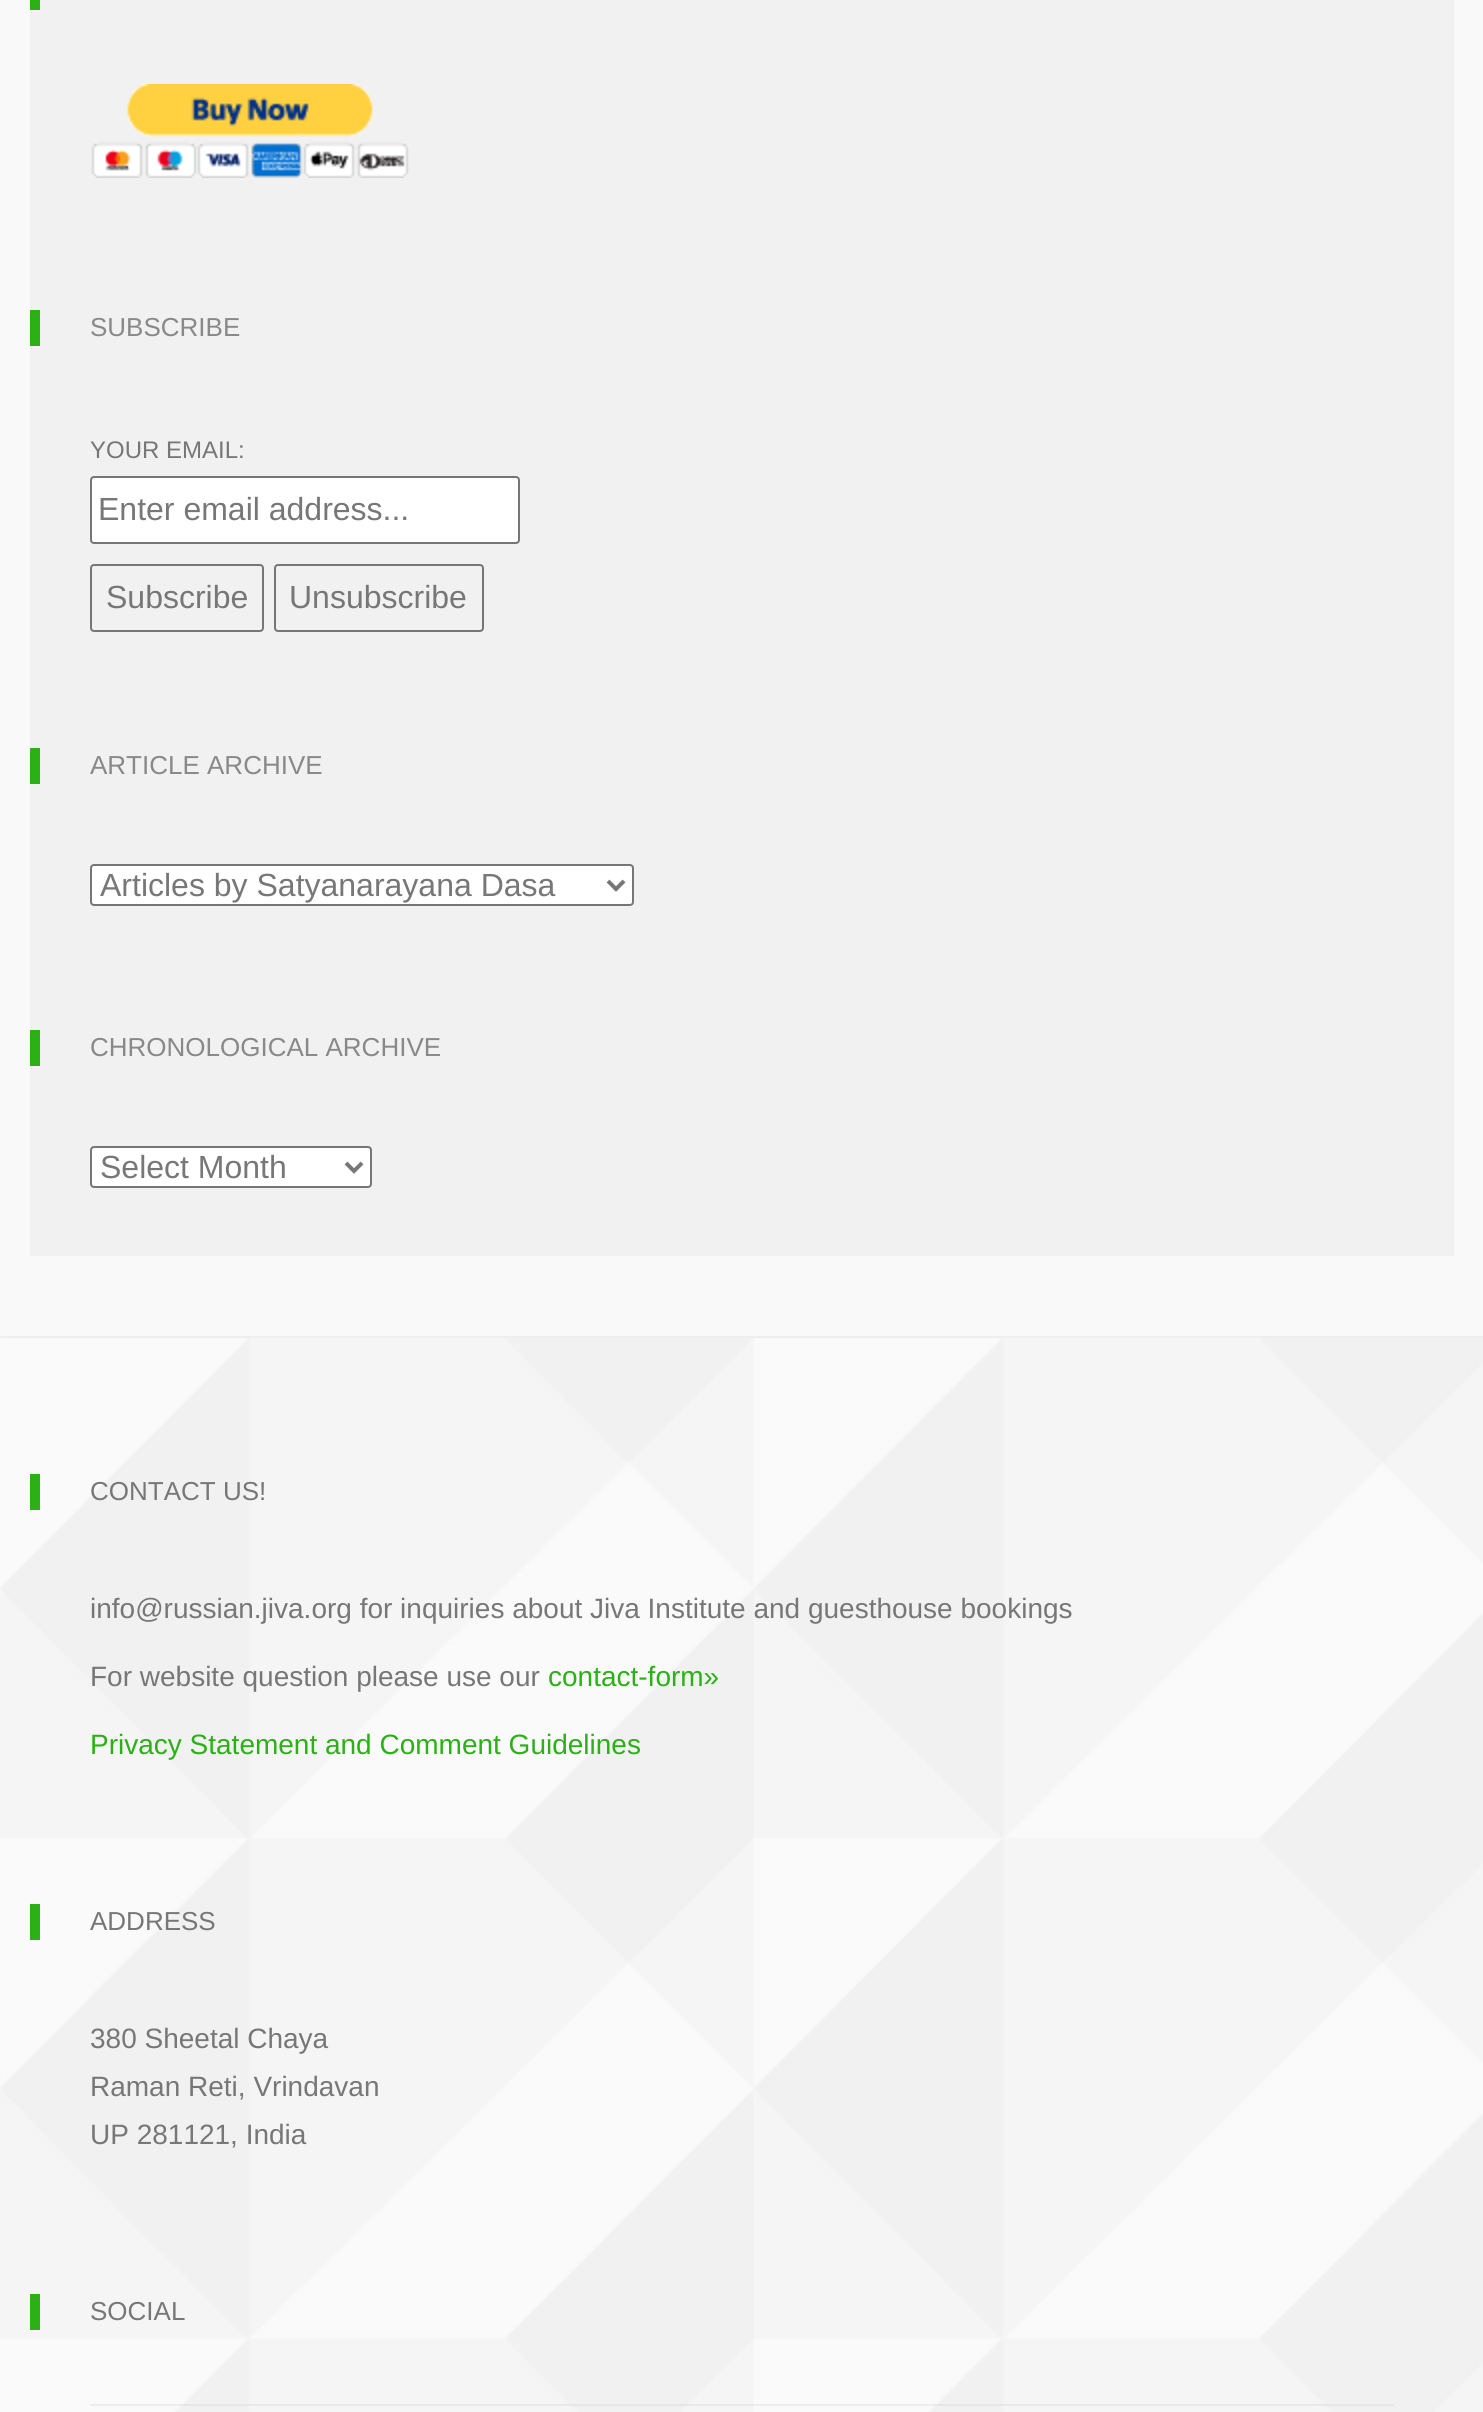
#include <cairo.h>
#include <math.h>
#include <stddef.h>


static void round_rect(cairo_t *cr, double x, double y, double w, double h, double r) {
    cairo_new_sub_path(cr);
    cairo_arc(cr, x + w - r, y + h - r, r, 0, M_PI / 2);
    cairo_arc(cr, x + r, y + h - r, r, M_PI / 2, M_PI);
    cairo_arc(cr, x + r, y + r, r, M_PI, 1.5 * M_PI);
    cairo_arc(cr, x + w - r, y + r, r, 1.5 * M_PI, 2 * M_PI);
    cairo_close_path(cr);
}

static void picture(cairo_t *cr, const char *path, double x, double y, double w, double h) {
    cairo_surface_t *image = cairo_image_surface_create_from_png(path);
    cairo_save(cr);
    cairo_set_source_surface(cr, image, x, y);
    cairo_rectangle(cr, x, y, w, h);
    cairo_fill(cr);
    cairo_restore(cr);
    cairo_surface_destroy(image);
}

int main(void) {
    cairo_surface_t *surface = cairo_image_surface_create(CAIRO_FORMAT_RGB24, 1483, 2412);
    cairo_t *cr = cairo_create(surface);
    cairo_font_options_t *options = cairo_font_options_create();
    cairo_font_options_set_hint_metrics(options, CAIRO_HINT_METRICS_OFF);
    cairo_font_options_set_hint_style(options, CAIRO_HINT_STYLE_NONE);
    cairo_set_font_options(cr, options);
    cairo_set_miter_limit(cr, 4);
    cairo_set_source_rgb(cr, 0.976, 0.976, 0.976);
    cairo_paint(cr);
    cairo_set_source_rgb(cr, 0.945, 0.945, 0.945);
    cairo_rectangle(cr, 30, 0, 1424, 1256);
    cairo_fill(cr);
    cairo_set_source_rgb(cr, 0.169, 0.69, 0.086);
    cairo_rectangle(cr, 30, 0, 10, 10);
    cairo_fill(cr);
    picture(cr, "img1.png", 91, 84, 318, 94);
    cairo_rectangle(cr, 30, 310, 10, 36);
    cairo_fill(cr);
    cairo_select_font_face(cr, "Liberation Sans", CAIRO_FONT_SLANT_NORMAL, CAIRO_FONT_WEIGHT_NORMAL);
    cairo_set_font_size(cr, 26);
    cairo_set_source_rgb(cr, 0.537, 0.537, 0.537);
    cairo_move_to(cr, 90, 336);
    cairo_show_text(cr, "SUBSCRIBE");
    cairo_set_font_size(cr, 24);
    cairo_set_source_rgb(cr, 0.467, 0.467, 0.467);
    cairo_move_to(cr, 90, 458);
    cairo_show_text(cr, "YOUR EMAIL:");
    cairo_set_source_rgb(cr, 1, 1, 1);
    round_rect(cr, 91, 477, 428, 66, 3);
    cairo_fill_preserve(cr);
    cairo_set_source_rgb(cr, 0.463, 0.463, 0.463);
    cairo_stroke(cr);
    cairo_set_font_size(cr, 32);
    cairo_set_source_rgb(cr, 0.467, 0.467, 0.467);
    cairo_move_to(cr, 98, 520);
    cairo_show_text(cr, "Enter email address...");
    round_rect(cr, 91, 565, 172, 66, 3);
    cairo_set_source_rgb(cr, 0.463, 0.463, 0.463);
    cairo_stroke(cr);
    cairo_set_source_rgb(cr, 0.467, 0.467, 0.467);
    cairo_move_to(cr, 106, 608);
    cairo_show_text(cr, "Subscribe");
    round_rect(cr, 275, 565, 208, 66, 3);
    cairo_set_source_rgb(cr, 0.463, 0.463, 0.463);
    cairo_stroke(cr);
    cairo_set_source_rgb(cr, 0.467, 0.467, 0.467);
    cairo_move_to(cr, 289, 608);
    cairo_show_text(cr, "Unsubscribe");
    cairo_set_source_rgb(cr, 0.169, 0.69, 0.086);
    cairo_rectangle(cr, 30, 748, 10, 36);
    cairo_fill(cr);
    cairo_set_font_size(cr, 26);
    cairo_set_source_rgb(cr, 0.537, 0.537, 0.537);
    cairo_move_to(cr, 90, 774);
    cairo_show_text(cr, "ARTICLE ARCHIVE");
    cairo_set_source_rgb(cr, 1, 1, 1);
    round_rect(cr, 91, 865, 542, 40, 3);
    cairo_fill_preserve(cr);
    cairo_set_source_rgb(cr, 0.463, 0.463, 0.463);
    cairo_stroke(cr);
    cairo_new_path(cr);
    cairo_move_to(cr, 608, 881);
    cairo_line_to(cr, 616, 889);
    cairo_line_to(cr, 624, 881);
    cairo_set_source_rgb(cr, 0.467, 0.467, 0.467);
    cairo_set_line_width(cr, 4);
    cairo_stroke(cr);
    cairo_set_font_size(cr, 32);
    cairo_move_to(cr, 100, 896);
    cairo_show_text(cr, "Articles by Satyanarayana Dasa");
    cairo_set_source_rgb(cr, 0.169, 0.69, 0.086);
    cairo_rectangle(cr, 30, 1030, 10, 36);
    cairo_fill(cr);
    cairo_set_font_size(cr, 26);
    cairo_set_source_rgb(cr, 0.537, 0.537, 0.537);
    cairo_move_to(cr, 90, 1056);
    cairo_show_text(cr, "CHRONOLOGICAL ARCHIVE");
    cairo_set_source_rgb(cr, 1, 1, 1);
    round_rect(cr, 91, 1147, 280, 40, 3);
    cairo_fill_preserve(cr);
    cairo_set_source_rgb(cr, 0.463, 0.463, 0.463);
    cairo_set_line_width(cr, 2);
    cairo_stroke(cr);
    cairo_new_path(cr);
    cairo_move_to(cr, 346, 1163);
    cairo_line_to(cr, 354, 1171);
    cairo_line_to(cr, 362, 1163);
    cairo_set_source_rgb(cr, 0.467, 0.467, 0.467);
    cairo_set_line_width(cr, 4);
    cairo_stroke(cr);
    cairo_set_font_size(cr, 32);
    cairo_move_to(cr, 100, 1178);
    cairo_show_text(cr, "Select Month");
    picture(cr, "img2.png", 0, 1338, 1483, 1074);
    cairo_set_source_rgb(cr, 0.933, 0.933, 0.933);
    cairo_rectangle(cr, 0, 1336, 1483, 2);
    cairo_fill(cr);
    cairo_set_source_rgb(cr, 0.169, 0.69, 0.086);
    cairo_rectangle(cr, 30, 1474, 10, 36);
    cairo_fill(cr);
    cairo_set_font_size(cr, 26);
    cairo_set_source_rgb(cr, 0.467, 0.467, 0.467);
    cairo_move_to(cr, 90, 1500);
    cairo_show_text(cr, "CONTACT US!");
    cairo_set_font_size(cr, 28);
    cairo_move_to(cr, 90, 1618);
    cairo_show_text(cr, "info@russian.jiva.org for inquiries about Jiva Institute and guesthouse bookings");
    cairo_move_to(cr, 90, 1686);
    cairo_show_text(cr, "For website question please use our");
    cairo_set_source_rgb(cr, 0.169, 0.69, 0.086);
    cairo_move_to(cr, 548, 1686);
    cairo_show_text(cr, "contact-form»");
    cairo_move_to(cr, 90, 1754);
    cairo_show_text(cr, "Privacy Statement and Comment Guidelines");
    cairo_rectangle(cr, 30, 1904, 10, 36);
    cairo_fill(cr);
    cairo_set_font_size(cr, 26);
    cairo_set_source_rgb(cr, 0.467, 0.467, 0.467);
    cairo_move_to(cr, 90, 1930);
    cairo_show_text(cr, "ADDRESS");
    cairo_set_font_size(cr, 28);
    cairo_move_to(cr, 90, 2048);
    cairo_show_text(cr, "380 Sheetal Chaya");
    cairo_move_to(cr, 90, 2096);
    cairo_show_text(cr, "Raman Reti, Vrindavan");
    cairo_move_to(cr, 90, 2144);
    cairo_show_text(cr, "UP 281121, India");
    cairo_set_source_rgb(cr, 0.169, 0.69, 0.086);
    cairo_rectangle(cr, 30, 2294, 10, 36);
    cairo_fill(cr);
    cairo_set_font_size(cr, 26);
    cairo_set_source_rgb(cr, 0.467, 0.467, 0.467);
    cairo_move_to(cr, 90, 2320);
    cairo_show_text(cr, "SOCIAL");
    cairo_set_source_rgba(cr, 0, 0, 0, 0.05);
    cairo_rectangle(cr, 90, 2404, 1304, 2);
    cairo_fill(cr);
    cairo_surface_write_to_png(surface, "page.png");
    cairo_font_options_destroy(options);
    cairo_destroy(cr);
    cairo_surface_destroy(surface);
    return 0;
}
